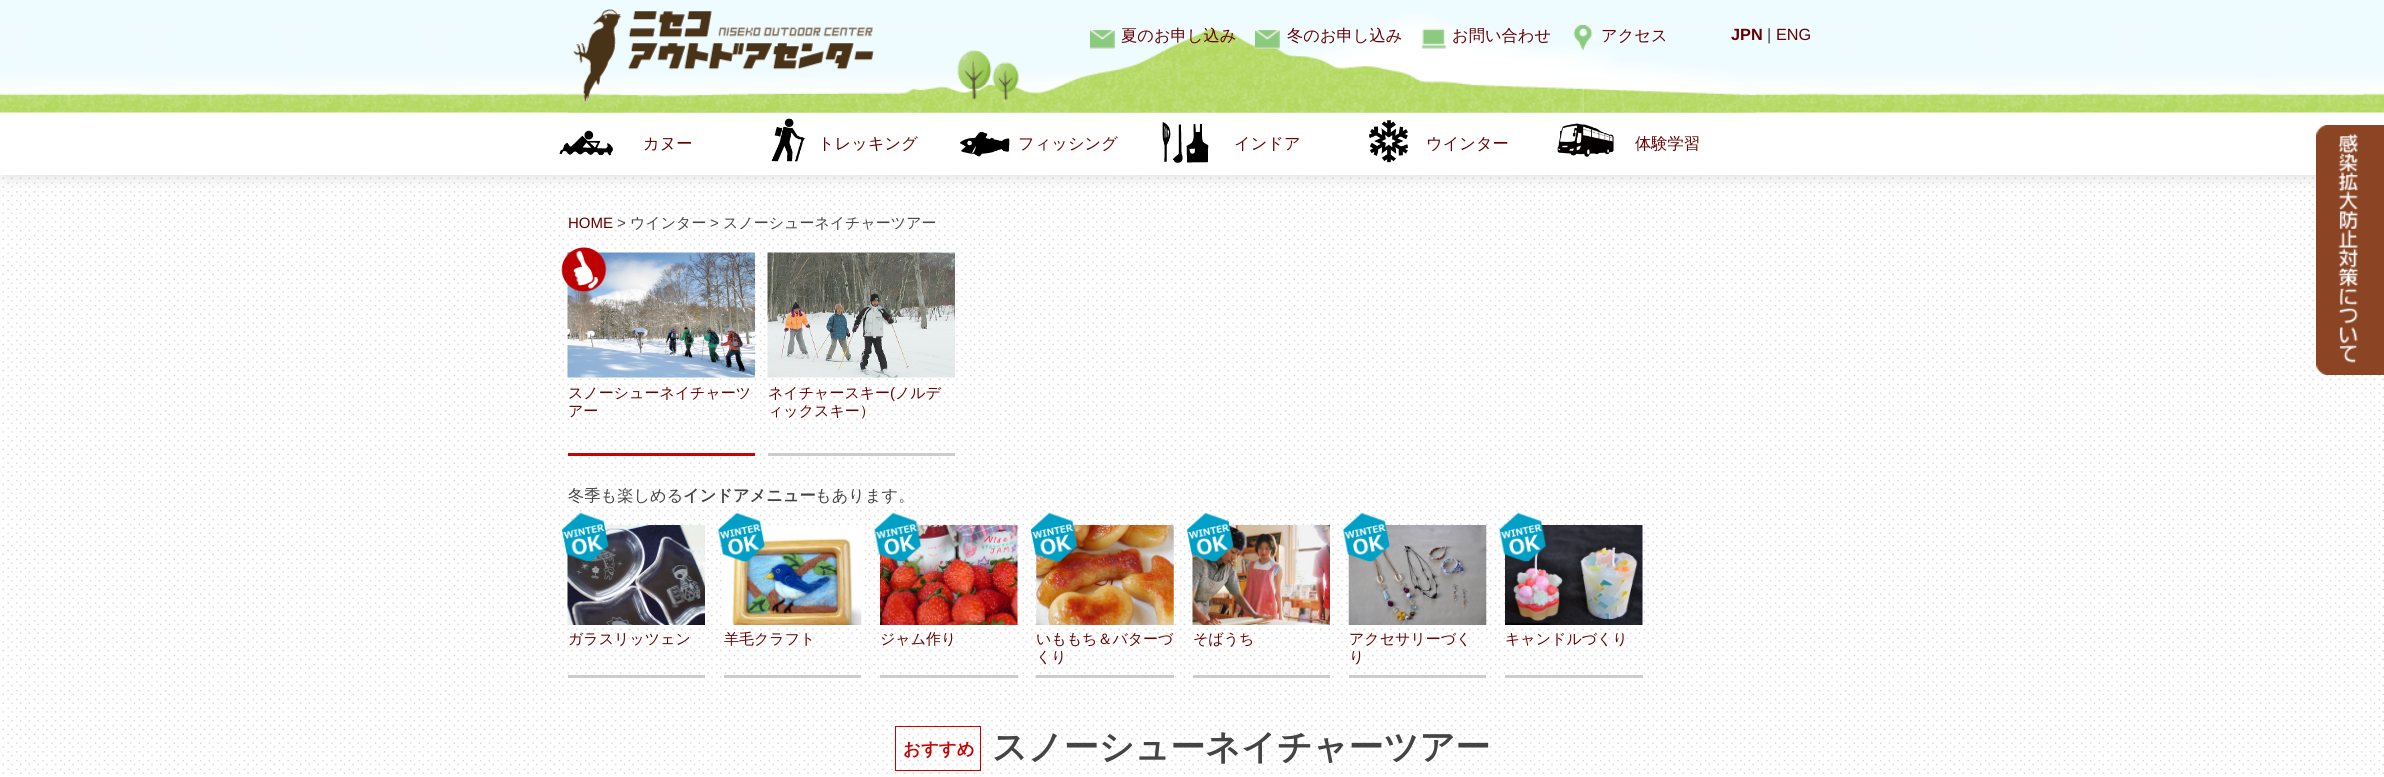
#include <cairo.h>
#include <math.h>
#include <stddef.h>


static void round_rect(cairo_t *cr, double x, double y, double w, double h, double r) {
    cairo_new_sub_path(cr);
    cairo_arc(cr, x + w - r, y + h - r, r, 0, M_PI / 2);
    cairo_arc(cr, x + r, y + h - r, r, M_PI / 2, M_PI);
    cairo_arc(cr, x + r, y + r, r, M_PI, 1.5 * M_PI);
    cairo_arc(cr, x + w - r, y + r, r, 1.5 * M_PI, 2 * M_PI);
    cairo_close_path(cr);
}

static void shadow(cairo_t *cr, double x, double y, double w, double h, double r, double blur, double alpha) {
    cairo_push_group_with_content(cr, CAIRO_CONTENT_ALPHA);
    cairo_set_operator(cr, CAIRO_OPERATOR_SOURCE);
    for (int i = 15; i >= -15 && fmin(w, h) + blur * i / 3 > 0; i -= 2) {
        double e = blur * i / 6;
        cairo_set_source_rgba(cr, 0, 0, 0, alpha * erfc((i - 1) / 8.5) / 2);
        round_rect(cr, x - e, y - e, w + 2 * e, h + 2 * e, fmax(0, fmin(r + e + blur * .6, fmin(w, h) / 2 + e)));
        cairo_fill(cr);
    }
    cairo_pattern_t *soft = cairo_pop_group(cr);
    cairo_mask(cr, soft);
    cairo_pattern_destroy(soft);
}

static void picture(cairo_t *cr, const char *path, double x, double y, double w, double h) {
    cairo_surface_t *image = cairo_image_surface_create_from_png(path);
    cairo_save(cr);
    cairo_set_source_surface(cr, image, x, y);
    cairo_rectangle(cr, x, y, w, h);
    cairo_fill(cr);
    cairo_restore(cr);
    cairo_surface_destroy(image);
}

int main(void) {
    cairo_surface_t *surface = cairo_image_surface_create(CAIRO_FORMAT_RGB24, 2384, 777);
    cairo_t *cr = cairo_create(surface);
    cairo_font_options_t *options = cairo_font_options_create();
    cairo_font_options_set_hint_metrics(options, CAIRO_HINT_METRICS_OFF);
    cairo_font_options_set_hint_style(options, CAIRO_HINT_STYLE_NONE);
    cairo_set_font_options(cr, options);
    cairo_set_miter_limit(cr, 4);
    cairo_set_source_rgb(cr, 1, 1, 1);
    cairo_paint(cr);
    picture(cr, "img1.png", 0, 175, 2384, 599);
    cairo_set_source_rgb(cr, 0.2, 0.2, 0.2);
    shadow(cr, 4, 0, 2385, 175, 0, 9.5, 0.2);
    cairo_set_source_rgb(cr, 1, 1, 1);
    cairo_rectangle(cr, 0, 112, 2384, 63);
    cairo_fill(cr);
    picture(cr, "img2.png", 0, 0, 2384, 113);
    picture(cr, "img3.png", 567, 13, 1190, 100);
    picture(cr, "img4.png", 573, 9, 301, 94);
    picture(cr, "img5.png", 1090, 29, 25, 20);
    cairo_select_font_face(cr, "WenQuanYi Zen Hei Medium", CAIRO_FONT_SLANT_NORMAL, CAIRO_FONT_WEIGHT_NORMAL);
    cairo_set_font_size(cr, 16.25);
    cairo_set_source_rgb(cr, 0.4, 0, 0);
    cairo_move_to(cr, 1121, 41);
    cairo_show_text(cr, "夏のお申し込み");
    picture(cr, "img6.png", 1255, 29, 25, 20);
    cairo_move_to(cr, 1287, 41);
    cairo_show_text(cr, "冬のお申し込み");
    picture(cr, "img7.png", 1421, 28, 26, 21);
    cairo_move_to(cr, 1452, 41);
    cairo_show_text(cr, "お問い合わせ");
    picture(cr, "img8.png", 1573, 25, 22, 25);
    cairo_move_to(cr, 1601, 41);
    cairo_show_text(cr, "アクセス");
    cairo_select_font_face(cr, "Liberation Sans", CAIRO_FONT_SLANT_NORMAL, CAIRO_FONT_WEIGHT_BOLD);
    cairo_move_to(cr, 1731, 40);
    cairo_show_text(cr, "JPN");
    cairo_select_font_face(cr, "Liberation Sans", CAIRO_FONT_SLANT_NORMAL, CAIRO_FONT_WEIGHT_NORMAL);
    cairo_set_source_rgb(cr, 0.267, 0.267, 0.267);
    cairo_move_to(cr, 1767, 40);
    cairo_show_text(cr, "|");
    cairo_set_source_rgb(cr, 0.4, 0, 0);
    cairo_move_to(cr, 1776, 40);
    cairo_show_text(cr, "ENG");
    picture(cr, "img9.png", 559, 130, 54, 26);
    cairo_select_font_face(cr, "WenQuanYi Zen Hei Medium", CAIRO_FONT_SLANT_NORMAL, CAIRO_FONT_WEIGHT_NORMAL);
    cairo_move_to(cr, 643, 149);
    cairo_show_text(cr, "カヌー");
    picture(cr, "img10.png", 771, 118, 34, 44);
    cairo_move_to(cr, 818, 149);
    cairo_show_text(cr, "トレッキング");
    picture(cr, "img11.png", 960, 131, 50, 26);
    cairo_move_to(cr, 1018, 149);
    cairo_show_text(cr, "フィッシング");
    picture(cr, "img12.png", 1162, 122, 47, 41);
    cairo_move_to(cr, 1234, 149);
    cairo_show_text(cr, "インドア");
    picture(cr, "img13.png", 1369, 120, 39, 43);
    cairo_move_to(cr, 1426, 149);
    cairo_show_text(cr, "ウインター");
    picture(cr, "img14.png", 1557, 123, 57, 34);
    cairo_move_to(cr, 1635, 149);
    cairo_show_text(cr, "体験学習");
    picture(cr, "img15.png", 2316, 125, 68, 250);
    cairo_select_font_face(cr, "Liberation Sans", CAIRO_FONT_SLANT_NORMAL, CAIRO_FONT_WEIGHT_NORMAL);
    cairo_set_font_size(cr, 15);
    cairo_move_to(cr, 568, 228);
    cairo_show_text(cr, "HOME");
    cairo_set_source_rgb(cr, 0.267, 0.267, 0.267);
    cairo_move_to(cr, 617, 228);
    cairo_show_text(cr, ">");
    cairo_select_font_face(cr, "WenQuanYi Zen Hei Medium", CAIRO_FONT_SLANT_NORMAL, CAIRO_FONT_WEIGHT_NORMAL);
    cairo_move_to(cr, 630, 228);
    cairo_show_text(cr, "ウインター");
    cairo_select_font_face(cr, "Liberation Sans", CAIRO_FONT_SLANT_NORMAL, CAIRO_FONT_WEIGHT_NORMAL);
    cairo_move_to(cr, 710, 228);
    cairo_show_text(cr, ">");
    cairo_select_font_face(cr, "WenQuanYi Zen Hei Medium", CAIRO_FONT_SLANT_NORMAL, CAIRO_FONT_WEIGHT_NORMAL);
    cairo_move_to(cr, 723, 228);
    cairo_show_text(cr, "スノーシューネイチャーツアー");
    cairo_set_source_rgb(cr, 0.8, 0, 0);
    cairo_rectangle(cr, 568, 453, 187, 3);
    cairo_fill(cr);
    picture(cr, "img17.png", 567, 252, 188, 126);
    picture(cr, "img16.png", 561, 247, 46, 45);
    cairo_set_source_rgb(cr, 0.4, 0, 0);
    cairo_move_to(cr, 568, 398);
    cairo_show_text(cr, "スノーシューネイチャーツ");
    cairo_move_to(cr, 568, 416);
    cairo_show_text(cr, "アー");
    cairo_set_source_rgb(cr, 0.8, 0.8, 0.8);
    cairo_rectangle(cr, 768, 453, 187, 3);
    cairo_fill(cr);
    picture(cr, "img18.png", 767, 252, 188, 126);
    cairo_set_source_rgb(cr, 0.4, 0, 0);
    cairo_move_to(cr, 768, 398);
    cairo_show_text(cr, "ネイチャースキー");
    cairo_select_font_face(cr, "Liberation Sans", CAIRO_FONT_SLANT_NORMAL, CAIRO_FONT_WEIGHT_NORMAL);
    cairo_move_to(cr, 890, 398);
    cairo_show_text(cr, "(");
    cairo_select_font_face(cr, "WenQuanYi Zen Hei Medium", CAIRO_FONT_SLANT_NORMAL, CAIRO_FONT_WEIGHT_NORMAL);
    cairo_move_to(cr, 895, 398);
    cairo_show_text(cr, "ノルデ");
    cairo_move_to(cr, 768, 416);
    cairo_show_text(cr, "ィックスキー）");
    cairo_set_font_size(cr, 16.25);
    cairo_set_source_rgb(cr, 0.267, 0.267, 0.267);
    cairo_move_to(cr, 568, 501);
    cairo_show_text(cr, "冬季も楽しめる");
    cairo_select_font_face(cr, "WenQuanYi Zen Hei", CAIRO_FONT_SLANT_NORMAL, CAIRO_FONT_WEIGHT_BOLD);
    cairo_move_to(cr, 683, 501);
    cairo_show_text(cr, "インドアメニュー");
    cairo_select_font_face(cr, "WenQuanYi Zen Hei Medium", CAIRO_FONT_SLANT_NORMAL, CAIRO_FONT_WEIGHT_NORMAL);
    cairo_move_to(cr, 815, 501);
    cairo_show_text(cr, "もあります。");
    cairo_set_source_rgb(cr, 0.8, 0.8, 0.8);
    cairo_rectangle(cr, 568, 675, 137, 3);
    cairo_fill(cr);
    picture(cr, "img20.png", 567, 525, 138, 100);
    picture(cr, "img19.png", 561, 512, 48, 50);
    cairo_set_font_size(cr, 15);
    cairo_set_source_rgb(cr, 0.4, 0, 0);
    cairo_move_to(cr, 568, 644);
    cairo_show_text(cr, "ガラスリッツェン");
    cairo_set_source_rgb(cr, 0.8, 0.8, 0.8);
    cairo_rectangle(cr, 724, 675, 137, 3);
    cairo_fill(cr);
    picture(cr, "img22.png", 725, 525, 137, 100);
    picture(cr, "img21.png", 717, 512, 48, 50);
    cairo_set_source_rgb(cr, 0.4, 0, 0);
    cairo_move_to(cr, 724, 644);
    cairo_show_text(cr, "羊毛クラフト");
    cairo_set_source_rgb(cr, 0.8, 0.8, 0.8);
    cairo_rectangle(cr, 880, 675, 138, 3);
    cairo_fill(cr);
    picture(cr, "img24.png", 880, 525, 138, 100);
    picture(cr, "img23.png", 874, 512, 48, 50);
    cairo_set_source_rgb(cr, 0.4, 0, 0);
    cairo_move_to(cr, 880, 644);
    cairo_show_text(cr, "ジャム作り");
    cairo_set_source_rgb(cr, 0.8, 0.8, 0.8);
    cairo_rectangle(cr, 1036, 675, 138, 3);
    cairo_fill(cr);
    picture(cr, "img26.png", 1036, 525, 138, 100);
    picture(cr, "img25.png", 1030, 512, 48, 50);
    cairo_set_source_rgb(cr, 0.4, 0, 0);
    cairo_move_to(cr, 1036, 644);
    cairo_show_text(cr, "いももち＆バターづ");
    cairo_move_to(cr, 1036, 662);
    cairo_show_text(cr, "くり");
    cairo_set_source_rgb(cr, 0.8, 0.8, 0.8);
    cairo_rectangle(cr, 1193, 675, 137, 3);
    cairo_fill(cr);
    picture(cr, "img28.png", 1192, 525, 138, 100);
    picture(cr, "img27.png", 1186, 512, 48, 50);
    cairo_set_source_rgb(cr, 0.4, 0, 0);
    cairo_move_to(cr, 1193, 644);
    cairo_show_text(cr, "そばうち");
    cairo_set_source_rgb(cr, 0.8, 0.8, 0.8);
    cairo_rectangle(cr, 1349, 675, 137, 3);
    cairo_fill(cr);
    picture(cr, "img30.png", 1348, 525, 139, 100);
    picture(cr, "img29.png", 1342, 512, 48, 50);
    cairo_set_source_rgb(cr, 0.4, 0, 0);
    cairo_move_to(cr, 1349, 644);
    cairo_show_text(cr, "アクセサリーづく");
    cairo_move_to(cr, 1349, 662);
    cairo_show_text(cr, "り");
    cairo_set_source_rgb(cr, 0.8, 0.8, 0.8);
    cairo_rectangle(cr, 1505, 675, 138, 3);
    cairo_fill(cr);
    picture(cr, "img32.png", 1505, 525, 138, 100);
    picture(cr, "img31.png", 1499, 512, 48, 50);
    cairo_set_source_rgb(cr, 0.4, 0, 0);
    cairo_move_to(cr, 1505, 644);
    cairo_show_text(cr, "キャンドルづくり");
    cairo_rectangle(cr, 895.5, 726.5, 85, 44);
    cairo_set_source_rgb(cr, 0.8, 0, 0);
    cairo_set_line_width(cr, 1);
    cairo_stroke(cr);
    cairo_select_font_face(cr, "WenQuanYi Zen Hei", CAIRO_FONT_SLANT_NORMAL, CAIRO_FONT_WEIGHT_BOLD);
    cairo_set_font_size(cr, 17.5);
    cairo_move_to(cr, 903, 755);
    cairo_show_text(cr, "おすすめ");
    cairo_set_font_size(cr, 35);
    cairo_set_source_rgb(cr, 0.267, 0.267, 0.267);
    cairo_move_to(cr, 992, 759);
    cairo_show_text(cr, "スノーシューネイチャーツアー");
    cairo_surface_write_to_png(surface, "page.png");
    cairo_font_options_destroy(options);
    cairo_destroy(cr);
    cairo_surface_destroy(surface);
    return 0;
}
